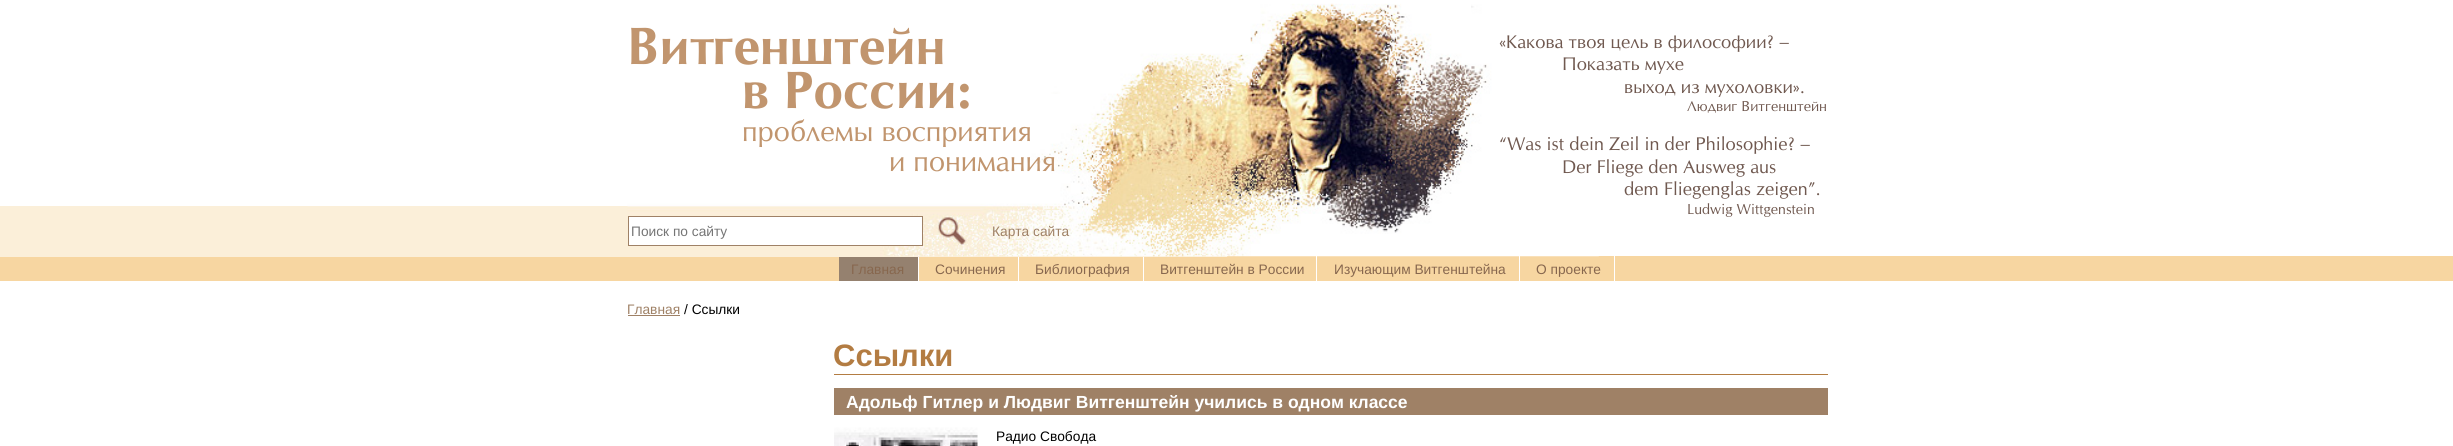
#include <cairo.h>
#include <math.h>
#include <stddef.h>


static void picture(cairo_t *cr, const char *path, double x, double y, double w, double h) {
    cairo_surface_t *image = cairo_image_surface_create_from_png(path);
    cairo_save(cr);
    cairo_set_source_surface(cr, image, x, y);
    cairo_rectangle(cr, x, y, w, h);
    cairo_fill(cr);
    cairo_restore(cr);
    cairo_surface_destroy(image);
}

int main(void) {
    cairo_surface_t *surface = cairo_image_surface_create(CAIRO_FORMAT_RGB24, 2453, 446);
    cairo_t *cr = cairo_create(surface);
    cairo_font_options_t *options = cairo_font_options_create();
    cairo_font_options_set_hint_metrics(options, CAIRO_HINT_METRICS_OFF);
    cairo_font_options_set_hint_style(options, CAIRO_HINT_STYLE_NONE);
    cairo_set_font_options(cr, options);
    cairo_set_miter_limit(cr, 4);
    cairo_set_source_rgb(cr, 1, 1, 1);
    cairo_paint(cr);
    cairo_set_source_rgb(cr, 0.965, 0.839, 0.631);
    cairo_rectangle(cr, 0, 256, 2453, 25);
    cairo_fill(cr);
    cairo_set_source_rgb(cr, 1, 1, 1);
    cairo_rectangle(cr, 918, 256, 1, 25);
    cairo_fill(cr);
    cairo_rectangle(cr, 1018, 256, 1, 25);
    cairo_fill(cr);
    cairo_rectangle(cr, 1143, 256, 1, 25);
    cairo_fill(cr);
    cairo_set_source_rgb(cr, 0.984, 0.937, 0.851);
    cairo_rectangle(cr, 0, 206, 1227, 51);
    cairo_fill(cr);
    cairo_set_source_rgb(cr, 1, 1, 1);
    cairo_rectangle(cr, 1316, 256, 1, 25);
    cairo_fill(cr);
    cairo_rectangle(cr, 1519, 256, 1, 25);
    cairo_fill(cr);
    picture(cr, "img1.png", 627, 3, 972, 254);
    cairo_select_font_face(cr, "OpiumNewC", CAIRO_FONT_SLANT_NORMAL, CAIRO_FONT_WEIGHT_BOLD);
    cairo_set_font_size(cr, 50);
    cairo_set_source_rgb(cr, 0.757, 0.584, 0.431);
    cairo_move_to(cr, 627, 64);
    cairo_show_text(cr, "Витгенштейн");
    cairo_move_to(cr, 742, 108);
    cairo_show_text(cr, "в России:");
    cairo_select_font_face(cr, "OpiumNewC", CAIRO_FONT_SLANT_NORMAL, CAIRO_FONT_WEIGHT_NORMAL);
    cairo_set_font_size(cr, 27.5);
    cairo_move_to(cr, 742, 141);
    cairo_show_text(cr, "проблемы восприятия");
    cairo_move_to(cr, 889, 171);
    cairo_show_text(cr, "и понимания");
    cairo_set_source_rgb(cr, 1, 1, 1);
    cairo_rectangle(cr, 628.5, 216.5, 294, 29);
    cairo_fill_preserve(cr);
    cairo_set_source_rgb(cr, 0.624, 0.506, 0.4);
    cairo_set_line_width(cr, 1);
    cairo_stroke(cr);
    cairo_select_font_face(cr, "Liberation Sans", CAIRO_FONT_SLANT_NORMAL, CAIRO_FONT_WEIGHT_NORMAL);
    cairo_set_font_size(cr, 13.75);
    cairo_set_source_rgb(cr, 0.459, 0.459, 0.459);
    cairo_move_to(cr, 631, 236);
    cairo_show_text(cr, "Поиск по сайту");
    picture(cr, "img2.png", 938, 217, 29, 28);
    cairo_set_source_rgb(cr, 0.624, 0.506, 0.4);
    cairo_move_to(cr, 992, 236);
    cairo_show_text(cr, "Карта сайта");
    cairo_select_font_face(cr, "OpiumNewC", CAIRO_FONT_SLANT_NORMAL, CAIRO_FONT_WEIGHT_NORMAL);
    cairo_set_font_size(cr, 17.5);
    cairo_set_source_rgb(cr, 0.439, 0.349, 0.314);
    cairo_move_to(cr, 1499, 48);
    cairo_show_text(cr, "«Какова твоя цель в философии? –");
    cairo_move_to(cr, 1562, 70);
    cairo_show_text(cr, "Показать мухе");
    cairo_move_to(cr, 1624, 93);
    cairo_show_text(cr, "выход из мухоловки».");
    cairo_set_font_size(cr, 13.75);
    cairo_move_to(cr, 1687, 111);
    cairo_show_text(cr, "Людвиг Витгенштейн");
    cairo_set_font_size(cr, 17.5);
    cairo_move_to(cr, 1499, 150);
    cairo_show_text(cr, "“Was ist dein Zeil in der Philosophie? –");
    cairo_move_to(cr, 1562, 173);
    cairo_show_text(cr, "Der Fliege den Ausweg aus");
    cairo_move_to(cr, 1624, 195);
    cairo_show_text(cr, "dem Fliegenglas zeigen”.");
    cairo_set_font_size(cr, 13.75);
    cairo_move_to(cr, 1687, 214);
    cairo_show_text(cr, "Ludwig Wittgenstein");
    cairo_set_source_rgb(cr, 0.584, 0.506, 0.435);
    cairo_rectangle(cr, 839, 257, 79, 24);
    cairo_fill(cr);
    cairo_select_font_face(cr, "Liberation Sans", CAIRO_FONT_SLANT_NORMAL, CAIRO_FONT_WEIGHT_NORMAL);
    cairo_set_source_rgb(cr, 0.529, 0.404, 0.306);
    cairo_move_to(cr, 851, 274);
    cairo_show_text(cr, "Главная");
    cairo_move_to(cr, 935, 274);
    cairo_show_text(cr, "Cочинения");
    cairo_move_to(cr, 1035, 274);
    cairo_show_text(cr, "Библиография");
    cairo_move_to(cr, 1160, 274);
    cairo_show_text(cr, "Витгенштейн в России");
    cairo_move_to(cr, 1334, 274);
    cairo_show_text(cr, "Изучающим Витгенштейна");
    cairo_set_source_rgb(cr, 1, 1, 1);
    cairo_rectangle(cr, 1614, 256, 1, 25);
    cairo_fill(cr);
    cairo_set_source_rgb(cr, 0.529, 0.404, 0.306);
    cairo_move_to(cr, 1536, 274);
    cairo_show_text(cr, "О проекте");
    cairo_set_source_rgb(cr, 0.624, 0.506, 0.4);
    cairo_move_to(cr, 627, 314);
    cairo_show_text(cr, "Главная");
    cairo_rectangle(cr, 628, 315, 52, 1);
    cairo_fill(cr);
    cairo_set_source_rgb(cr, 0, 0, 0);
    cairo_move_to(cr, 684, 314);
    cairo_show_text(cr, "/ Ссылки");
    cairo_set_source_rgb(cr, 0.702, 0.486, 0.259);
    cairo_rectangle(cr, 834, 374, 994, 1);
    cairo_fill(cr);
    cairo_select_font_face(cr, "Liberation Sans", CAIRO_FONT_SLANT_NORMAL, CAIRO_FONT_WEIGHT_BOLD);
    cairo_set_font_size(cr, 31);
    cairo_move_to(cr, 833, 366);
    cairo_show_text(cr, "Ссылки");
    cairo_set_source_rgb(cr, 0.624, 0.506, 0.4);
    cairo_rectangle(cr, 834, 388, 994, 27);
    cairo_fill(cr);
    cairo_set_font_size(cr, 17.5);
    cairo_set_source_rgb(cr, 1, 1, 1);
    cairo_move_to(cr, 846, 408);
    cairo_show_text(cr, "Адольф Гитлер и Людвиг Витгенштейн учились в одном классе");
    picture(cr, "img3.png", 834, 427, 144, 19);
    cairo_select_font_face(cr, "Liberation Sans", CAIRO_FONT_SLANT_NORMAL, CAIRO_FONT_WEIGHT_NORMAL);
    cairo_set_font_size(cr, 13.75);
    cairo_set_source_rgb(cr, 0, 0, 0);
    cairo_move_to(cr, 996, 441);
    cairo_show_text(cr, "Радио Свобода");
    cairo_surface_write_to_png(surface, "page.png");
    cairo_font_options_destroy(options);
    cairo_destroy(cr);
    cairo_surface_destroy(surface);
    return 0;
}
